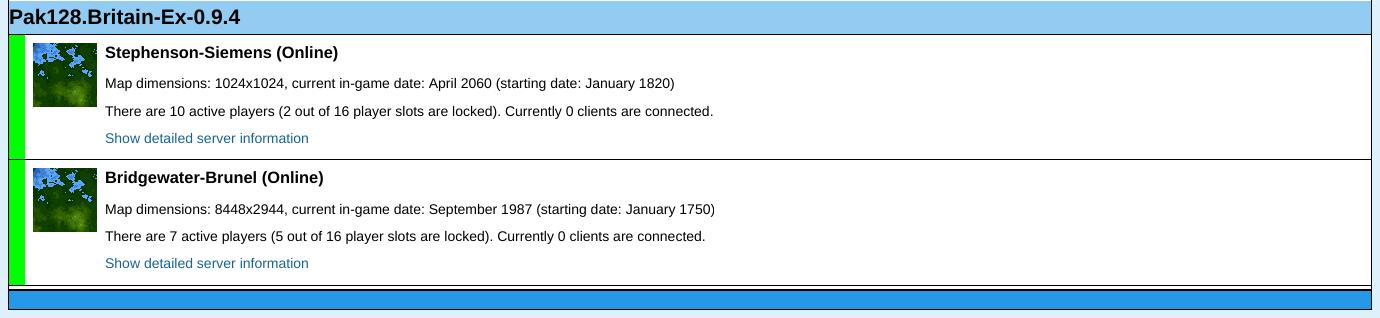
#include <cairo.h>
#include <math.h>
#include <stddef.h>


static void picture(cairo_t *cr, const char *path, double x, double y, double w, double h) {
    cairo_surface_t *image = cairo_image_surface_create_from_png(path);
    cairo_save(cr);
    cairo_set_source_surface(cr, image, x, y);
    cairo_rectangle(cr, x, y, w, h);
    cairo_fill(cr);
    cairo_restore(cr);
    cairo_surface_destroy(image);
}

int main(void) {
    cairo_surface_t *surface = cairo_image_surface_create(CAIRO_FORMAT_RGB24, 1380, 318);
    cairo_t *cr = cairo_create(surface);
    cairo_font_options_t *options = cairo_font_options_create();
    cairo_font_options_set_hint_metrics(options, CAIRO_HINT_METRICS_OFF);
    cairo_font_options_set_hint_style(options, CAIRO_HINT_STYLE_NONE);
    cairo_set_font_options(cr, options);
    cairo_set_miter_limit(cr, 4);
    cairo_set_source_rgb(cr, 0.871, 0.941, 0.984);
    cairo_paint(cr);
    cairo_rectangle(cr, 8.5, -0.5, 1363, 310);
    cairo_set_source_rgb(cr, 0, 0, 0);
    cairo_set_line_width(cr, 1);
    cairo_stroke(cr);
    cairo_set_source_rgb(cr, 1, 1, 1);
    cairo_rectangle(cr, 9, 0, 1362, 289);
    cairo_fill(cr);
    cairo_set_source_rgb(cr, 0, 0, 0);
    cairo_rectangle(cr, 9, 289, 1362, 2);
    cairo_fill(cr);
    cairo_set_source_rgb(cr, 0.573, 0.8, 0.949);
    cairo_rectangle(cr, 9, 1, 1362, 33);
    cairo_fill(cr);
    cairo_set_source_rgb(cr, 0, 0, 0);
    cairo_rectangle(cr, 9, 34, 1362, 1);
    cairo_fill(cr);
    cairo_select_font_face(cr, "Liberation Sans", CAIRO_FONT_SLANT_NORMAL, CAIRO_FONT_WEIGHT_BOLD);
    cairo_set_font_size(cr, 21);
    cairo_move_to(cr, 9, 24);
    cairo_show_text(cr, "Pak128.Britain-Ex-0.9.4");
    cairo_set_source_rgb(cr, 0, 1, 0);
    cairo_rectangle(cr, 9, 35, 16, 124);
    cairo_fill(cr);
    cairo_set_source_rgb(cr, 0, 0, 0);
    cairo_rectangle(cr, 9, 159, 1362, 1);
    cairo_fill(cr);
    picture(cr, "img1.png", 33, 43, 64, 64);
    cairo_set_font_size(cr, 16.4);
    cairo_move_to(cr, 105, 58);
    cairo_show_text(cr, "Stephenson-Siemens (Online)");
    cairo_select_font_face(cr, "Liberation Sans", CAIRO_FONT_SLANT_NORMAL, CAIRO_FONT_WEIGHT_NORMAL);
    cairo_set_font_size(cr, 14);
    cairo_move_to(cr, 105, 88);
    cairo_show_text(cr, "Map dimensions: 1024x1024, current in-game date: April 2060 (starting date: January 1820)");
    cairo_move_to(cr, 105, 116);
    cairo_show_text(cr, "There are 10 active players (2 out of 16 player slots are locked). Currently 0 clients are connected.");
    cairo_set_source_rgb(cr, 0.082, 0.396, 0.592);
    cairo_move_to(cr, 105, 143);
    cairo_show_text(cr, "Show detailed server information");
    cairo_set_source_rgb(cr, 0, 1, 0);
    cairo_rectangle(cr, 9, 160, 16, 125);
    cairo_fill(cr);
    cairo_set_source_rgb(cr, 0, 0, 0);
    cairo_rectangle(cr, 9, 285, 1362, 1);
    cairo_fill(cr);
    picture(cr, "img1.png", 33, 168, 64, 64);
    cairo_select_font_face(cr, "Liberation Sans", CAIRO_FONT_SLANT_NORMAL, CAIRO_FONT_WEIGHT_BOLD);
    cairo_set_font_size(cr, 16.4);
    cairo_move_to(cr, 105, 183);
    cairo_show_text(cr, "Bridgewater-Brunel (Online)");
    cairo_select_font_face(cr, "Liberation Sans", CAIRO_FONT_SLANT_NORMAL, CAIRO_FONT_WEIGHT_NORMAL);
    cairo_set_font_size(cr, 14);
    cairo_move_to(cr, 105, 214);
    cairo_show_text(cr, "Map dimensions: 8448x2944, current in-game date: September 1987 (starting date: January 1750)");
    cairo_move_to(cr, 105, 241);
    cairo_show_text(cr, "There are 7 active players (5 out of 16 player slots are locked). Currently 0 clients are connected.");
    cairo_set_source_rgb(cr, 0.082, 0.396, 0.592);
    cairo_move_to(cr, 105, 268);
    cairo_show_text(cr, "Show detailed server information");
    cairo_set_source_rgb(cr, 0.145, 0.6, 0.898);
    cairo_rectangle(cr, 9, 291, 1362, 18);
    cairo_fill(cr);
    cairo_surface_write_to_png(surface, "page.png");
    cairo_font_options_destroy(options);
    cairo_destroy(cr);
    cairo_surface_destroy(surface);
    return 0;
}
